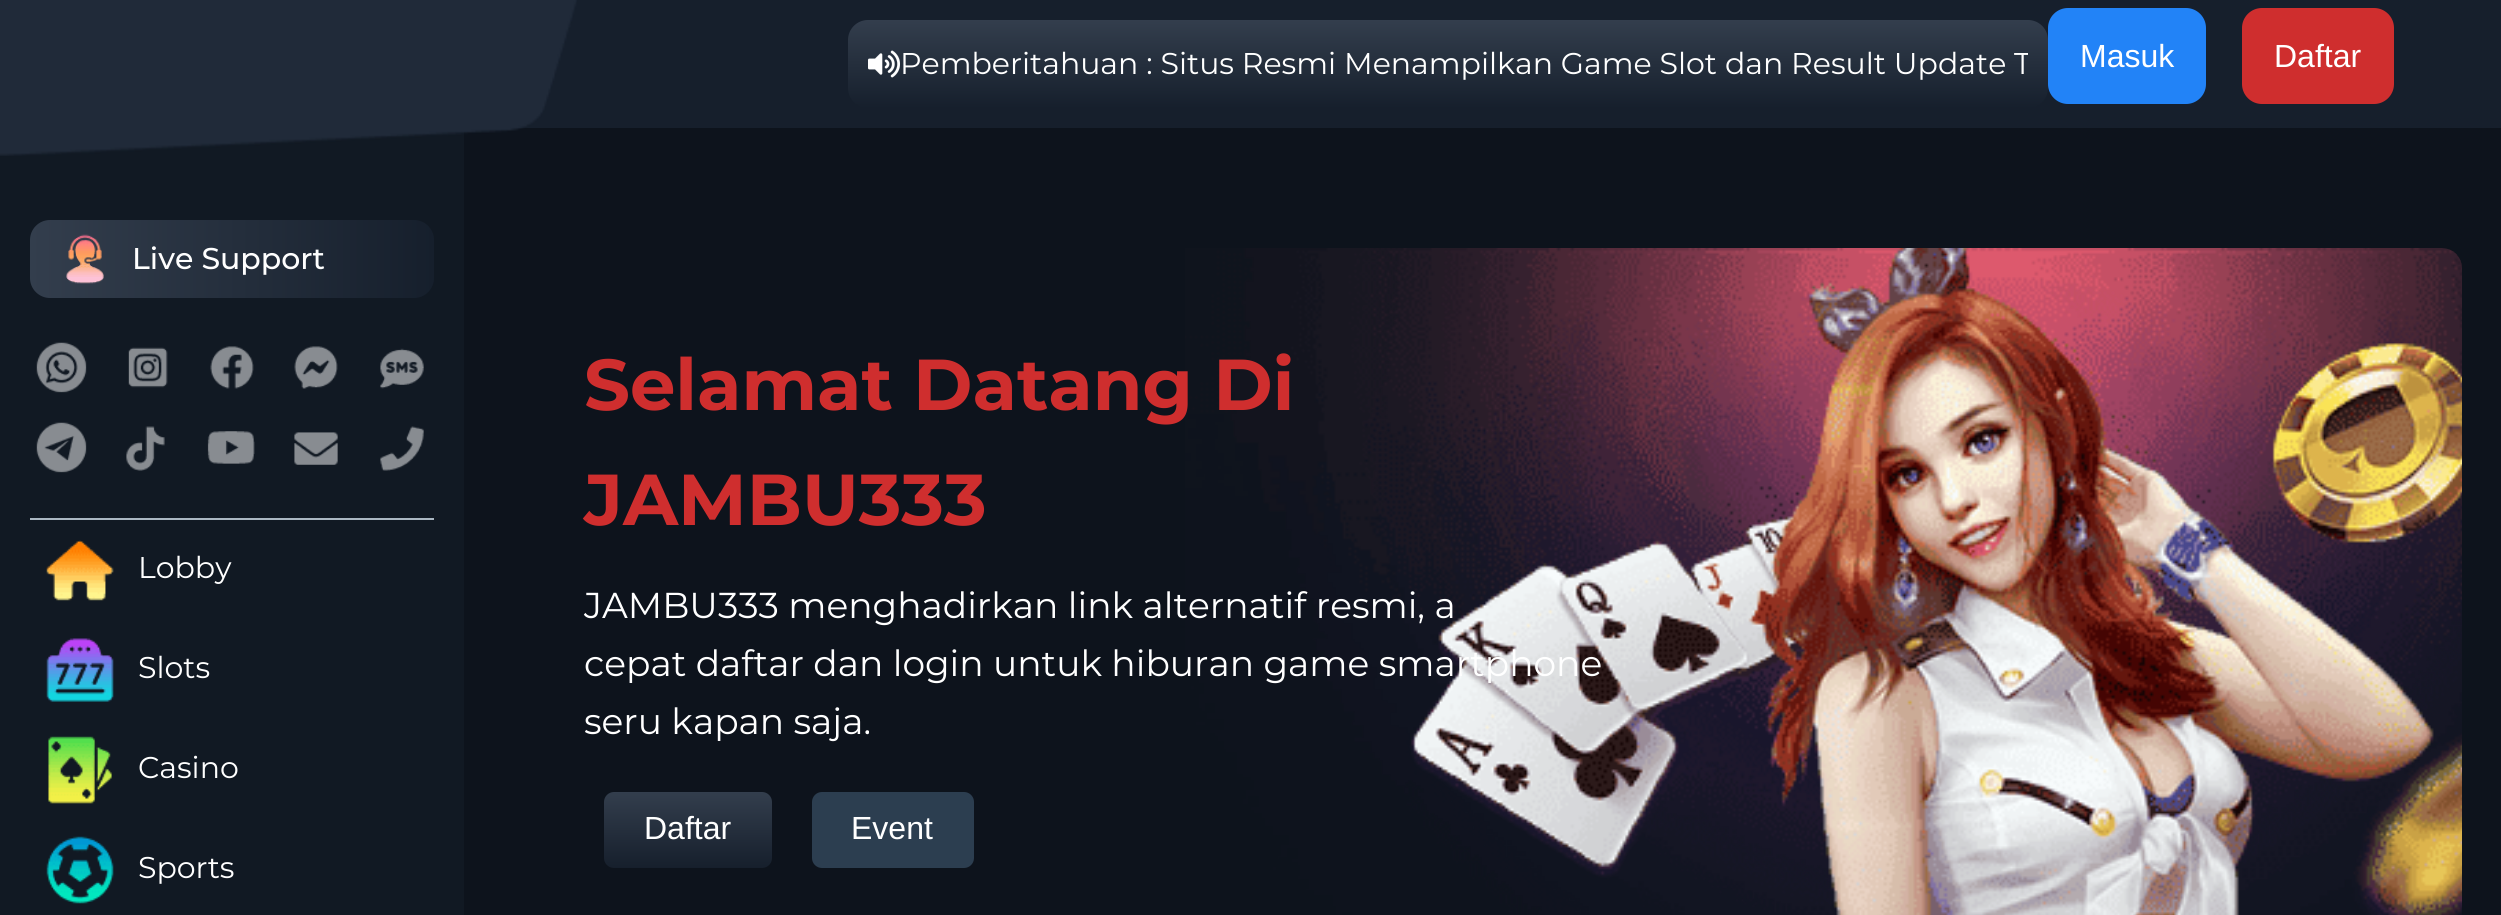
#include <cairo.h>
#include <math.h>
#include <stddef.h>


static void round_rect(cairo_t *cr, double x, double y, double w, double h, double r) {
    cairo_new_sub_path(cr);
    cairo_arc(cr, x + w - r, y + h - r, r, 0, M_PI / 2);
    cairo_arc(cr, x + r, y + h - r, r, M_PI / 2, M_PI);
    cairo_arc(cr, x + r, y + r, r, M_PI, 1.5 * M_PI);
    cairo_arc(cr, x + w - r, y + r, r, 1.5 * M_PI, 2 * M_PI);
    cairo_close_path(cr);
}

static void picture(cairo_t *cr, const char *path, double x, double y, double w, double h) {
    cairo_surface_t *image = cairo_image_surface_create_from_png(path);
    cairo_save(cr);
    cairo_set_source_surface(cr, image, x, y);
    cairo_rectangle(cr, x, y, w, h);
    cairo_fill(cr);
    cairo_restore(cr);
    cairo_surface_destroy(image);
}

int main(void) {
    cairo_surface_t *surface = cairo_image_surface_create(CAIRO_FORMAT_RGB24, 2501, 915);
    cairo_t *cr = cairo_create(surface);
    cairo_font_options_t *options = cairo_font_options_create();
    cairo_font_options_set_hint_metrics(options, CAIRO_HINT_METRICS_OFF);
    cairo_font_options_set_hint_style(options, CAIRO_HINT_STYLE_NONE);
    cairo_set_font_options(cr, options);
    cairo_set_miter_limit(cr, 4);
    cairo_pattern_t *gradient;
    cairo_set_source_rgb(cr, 0.051, 0.075, 0.11);
    cairo_paint(cr);
    cairo_set_source_rgb(cr, 0.086, 0.122, 0.173);
    cairo_rectangle(cr, 510, 0, 1991, 128);
    cairo_fill(cr);
    cairo_set_source_rgb(cr, 0.067, 0.098, 0.137);
    cairo_rectangle(cr, 0, 131, 464, 784);
    cairo_fill(cr);
    picture(cr, "img1.png", 0, 0, 577, 156);
    gradient = cairo_pattern_create_linear(1448, 20, 1448, 108);
    cairo_pattern_add_color_stop_rgba(gradient, 0, 0.2, 0.243, 0.302, 1);
    cairo_pattern_add_color_stop_rgba(gradient, 1, 0.086, 0.122, 0.173, 1);
    cairo_set_source(cr, gradient);
    cairo_pattern_destroy(gradient);
    round_rect(cr, 848, 20, 1200, 88, 20);
    cairo_fill(cr);
    picture(cr, "img2.png", 868, 50, 32, 28);
    cairo_save(cr);
    cairo_rectangle(cr, 900, 40, 1128, 48);
    cairo_clip(cr);
    cairo_select_font_face(cr, "Montserrat", CAIRO_FONT_SLANT_NORMAL, CAIRO_FONT_WEIGHT_NORMAL);
    cairo_set_font_size(cr, 30);
    cairo_set_source_rgb(cr, 1, 1, 1);
    cairo_move_to(cr, 900, 74);
    cairo_show_text(cr, "Pemberitahuan : Situs Resmi Menampilkan Game Slot dan Result Update T");
    cairo_restore(cr);
    cairo_set_source_rgb(cr, 0.133, 0.514, 0.965);
    round_rect(cr, 2048, 8, 158, 96, 20);
    cairo_fill(cr);
    cairo_select_font_face(cr, "Liberation Sans", CAIRO_FONT_SLANT_NORMAL, CAIRO_FONT_WEIGHT_NORMAL);
    cairo_set_font_size(cr, 32);
    cairo_set_source_rgb(cr, 1, 1, 1);
    cairo_move_to(cr, 2080, 67);
    cairo_show_text(cr, "Masuk");
    cairo_set_source_rgb(cr, 0.812, 0.18, 0.18);
    round_rect(cr, 2242, 8, 152, 96, 20);
    cairo_fill(cr);
    cairo_set_source_rgb(cr, 1, 1, 1);
    cairo_move_to(cr, 2274, 67);
    cairo_show_text(cr, "Daftar");
    gradient = cairo_pattern_create_linear(30, 259, 434, 259);
    cairo_pattern_add_color_stop_rgba(gradient, 0, 0.2, 0.243, 0.302, 1);
    cairo_pattern_add_color_stop_rgba(gradient, 1, 0.086, 0.122, 0.173, 1);
    cairo_set_source(cr, gradient);
    cairo_pattern_destroy(gradient);
    round_rect(cr, 30, 220, 404, 78, 20);
    cairo_fill(cr);
    picture(cr, "img3.png", 66, 234, 38, 50);
    cairo_select_font_face(cr, "Montserrat Medium", CAIRO_FONT_SLANT_NORMAL, CAIRO_FONT_WEIGHT_NORMAL);
    cairo_set_font_size(cr, 30);
    cairo_set_source_rgb(cr, 1, 1, 1);
    cairo_move_to(cr, 132, 269);
    cairo_show_text(cr, "Live Support");
    picture(cr, "img4.png", 36, 342, 51, 51);
    picture(cr, "img5.png", 128, 347, 40, 41);
    picture(cr, "img6.png", 210, 346, 44, 43);
    picture(cr, "img7.png", 294, 346, 44, 43);
    picture(cr, "img8.png", 380, 348, 44, 41);
    picture(cr, "img9.png", 36, 422, 51, 51);
    picture(cr, "img10.png", 126, 426, 39, 45);
    picture(cr, "img11.png", 207, 431, 48, 33);
    picture(cr, "img12.png", 294, 432, 44, 33);
    picture(cr, "img13.png", 380, 426, 44, 45);
    cairo_set_source_rgb(cr, 0.671, 0.722, 0.765);
    cairo_rectangle(cr, 30, 518, 404, 2);
    cairo_fill(cr);
    picture(cr, "img14.png", 46, 540, 68, 61);
    cairo_select_font_face(cr, "Montserrat", CAIRO_FONT_SLANT_NORMAL, CAIRO_FONT_WEIGHT_NORMAL);
    cairo_set_source_rgb(cr, 1, 1, 1);
    cairo_move_to(cr, 138, 578);
    cairo_show_text(cr, "Lobby");
    picture(cr, "img15.png", 46, 638, 68, 64);
    cairo_move_to(cr, 138, 678);
    cairo_show_text(cr, "Slots");
    picture(cr, "img16.png", 48, 736, 64, 68);
    cairo_move_to(cr, 138, 778);
    cairo_show_text(cr, "Casino");
    picture(cr, "img17.png", 46, 836, 68, 68);
    cairo_move_to(cr, 138, 878);
    cairo_show_text(cr, "Sports");
    picture(cr, "img18.png", 1185, 248, 1277, 667);
    cairo_select_font_face(cr, "Montserrat", CAIRO_FONT_SLANT_NORMAL, CAIRO_FONT_WEIGHT_BOLD);
    cairo_set_font_size(cr, 72);
    cairo_set_source_rgb(cr, 0.812, 0.18, 0.18);
    cairo_move_to(cr, 584, 410);
    cairo_show_text(cr, "Selamat Datang Di");
    cairo_move_to(cr, 584, 525);
    cairo_show_text(cr, "JAMBU333");
    cairo_select_font_face(cr, "Montserrat", CAIRO_FONT_SLANT_NORMAL, CAIRO_FONT_WEIGHT_NORMAL);
    cairo_set_font_size(cr, 36);
    cairo_set_source_rgb(cr, 1, 1, 1);
    cairo_move_to(cr, 584, 618);
    cairo_show_text(cr, "JAMBU333 menghadirkan link alternatif resmi, a");
    cairo_move_to(cr, 584, 676);
    cairo_show_text(cr, "cepat daftar dan login untuk hiburan game smartphone");
    cairo_move_to(cr, 584, 734);
    cairo_show_text(cr, "seru kapan saja.");
    gradient = cairo_pattern_create_linear(688, 792, 688, 868);
    cairo_pattern_add_color_stop_rgba(gradient, 0, 0.2, 0.243, 0.302, 1);
    cairo_pattern_add_color_stop_rgba(gradient, 1, 0.086, 0.122, 0.173, 1);
    cairo_set_source(cr, gradient);
    cairo_pattern_destroy(gradient);
    round_rect(cr, 604, 792, 168, 76, 10);
    cairo_fill(cr);
    cairo_select_font_face(cr, "Liberation Sans", CAIRO_FONT_SLANT_NORMAL, CAIRO_FONT_WEIGHT_NORMAL);
    cairo_set_font_size(cr, 32);
    cairo_set_source_rgb(cr, 1, 1, 1);
    cairo_move_to(cr, 644, 839);
    cairo_show_text(cr, "Daftar");
    cairo_set_source_rgb(cr, 0.173, 0.243, 0.314);
    round_rect(cr, 812, 792, 162, 76, 10);
    cairo_fill(cr);
    cairo_set_source_rgb(cr, 1, 1, 1);
    cairo_move_to(cr, 851, 839);
    cairo_show_text(cr, "Event");
    cairo_surface_write_to_png(surface, "page.png");
    cairo_font_options_destroy(options);
    cairo_destroy(cr);
    cairo_surface_destroy(surface);
    return 0;
}
